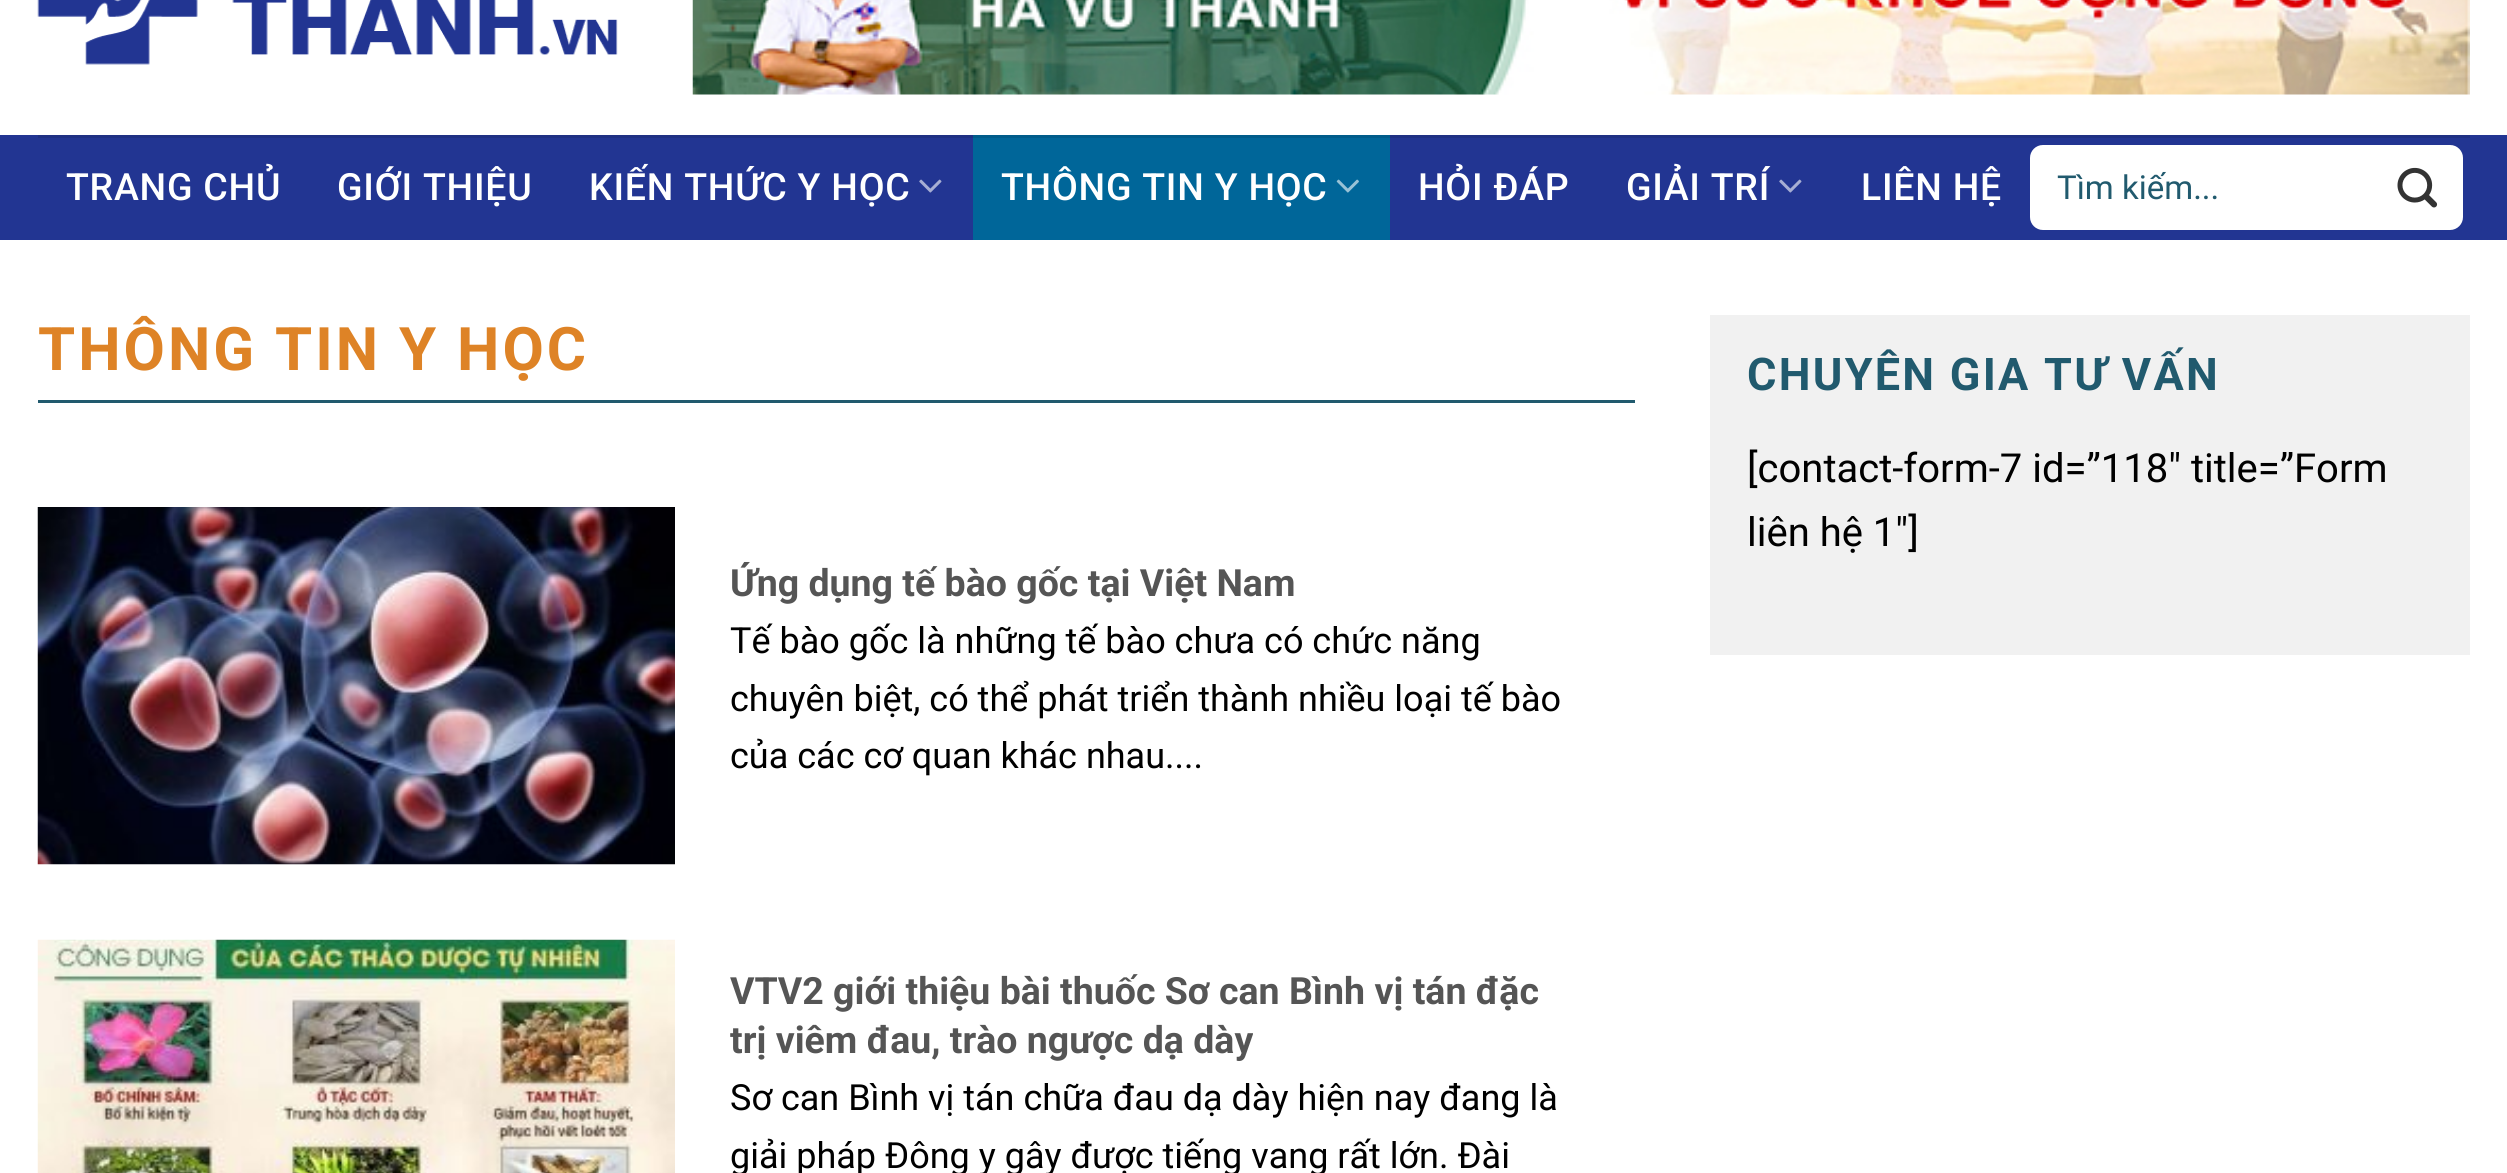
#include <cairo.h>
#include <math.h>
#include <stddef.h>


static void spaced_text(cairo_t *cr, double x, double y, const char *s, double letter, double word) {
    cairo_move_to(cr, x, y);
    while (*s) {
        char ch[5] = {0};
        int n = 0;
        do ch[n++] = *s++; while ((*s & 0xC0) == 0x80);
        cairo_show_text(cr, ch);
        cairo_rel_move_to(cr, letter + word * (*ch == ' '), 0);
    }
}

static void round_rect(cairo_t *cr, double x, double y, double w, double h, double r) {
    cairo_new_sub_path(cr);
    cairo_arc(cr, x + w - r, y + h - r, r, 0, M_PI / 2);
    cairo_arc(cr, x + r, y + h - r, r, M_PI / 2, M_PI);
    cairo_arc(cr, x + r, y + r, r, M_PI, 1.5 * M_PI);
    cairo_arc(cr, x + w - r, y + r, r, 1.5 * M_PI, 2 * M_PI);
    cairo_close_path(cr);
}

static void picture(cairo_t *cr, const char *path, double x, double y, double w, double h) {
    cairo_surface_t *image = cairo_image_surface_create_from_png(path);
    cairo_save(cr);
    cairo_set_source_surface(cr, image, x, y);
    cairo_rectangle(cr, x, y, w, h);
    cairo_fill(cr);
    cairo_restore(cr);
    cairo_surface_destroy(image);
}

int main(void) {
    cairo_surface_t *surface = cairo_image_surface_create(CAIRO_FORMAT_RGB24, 2507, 1173);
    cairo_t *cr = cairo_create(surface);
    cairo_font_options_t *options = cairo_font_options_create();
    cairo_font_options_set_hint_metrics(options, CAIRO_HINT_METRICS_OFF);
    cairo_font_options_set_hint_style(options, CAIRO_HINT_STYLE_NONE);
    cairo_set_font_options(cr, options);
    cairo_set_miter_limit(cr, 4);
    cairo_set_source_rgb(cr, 1, 1, 1);
    cairo_paint(cr);
    picture(cr, "img1.png", 37, 0, 581, 65);
    picture(cr, "img2.png", 692, 0, 1778, 95);
    cairo_set_source_rgb(cr, 0.133, 0.208, 0.573);
    cairo_rectangle(cr, 0, 135, 2507, 105);
    cairo_fill(cr);
    cairo_set_source_rgb(cr, 0.122, 0.188, 0.514);
    cairo_rectangle(cr, 38, 135, 2432, 3);
    cairo_fill(cr);
    cairo_select_font_face(cr, "Roboto Medium", CAIRO_FONT_SLANT_NORMAL, CAIRO_FONT_WEIGHT_NORMAL);
    cairo_set_font_size(cr, 37.5);
    cairo_set_source_rgb(cr, 1, 1, 1);
    spaced_text(cr, 66, 200, "TRANG CHỦ", 0.75, 0);
    spaced_text(cr, 337, 200, "GIỚI THIỆU", 0.75, 0);
    spaced_text(cr, 589, 200, "KIẾN THỨC Y HỌC", 0.75, 0);
    picture(cr, "img3.png", 919, 179, 23, 14);
    cairo_set_source_rgb(cr, 0, 0.4, 0.6);
    cairo_rectangle(cr, 973, 138, 417, 102);
    cairo_fill(cr);
    cairo_set_source_rgb(cr, 0, 0.361, 0.541);
    cairo_rectangle(cr, 973, 135, 417, 3);
    cairo_fill(cr);
    cairo_set_source_rgb(cr, 1, 1, 1);
    spaced_text(cr, 1001, 200, "THÔNG TIN Y HỌC", 0.75, 0);
    picture(cr, "img4.png", 1336, 179, 23, 14);
    spaced_text(cr, 1418, 200, "HỎI ĐÁP", 0.75, 0);
    spaced_text(cr, 1626, 200, "GIẢI TRÍ", 0.75, 0);
    picture(cr, "img3.png", 1779, 179, 23, 14);
    spaced_text(cr, 1861, 200, "LIÊN HỆ", 0.75, 0);
    round_rect(cr, 2030, 145, 433, 85, 13);
    cairo_fill(cr);
    round_rect(cr, 2031.5, 146.5, 430, 82, 11.5);
    cairo_set_source_rgba(cr, 1, 1, 1, 0.09);
    cairo_set_line_width(cr, 3);
    cairo_stroke(cr);
    cairo_select_font_face(cr, "Roboto", CAIRO_FONT_SLANT_NORMAL, CAIRO_FONT_WEIGHT_NORMAL);
    cairo_set_font_size(cr, 33);
    cairo_set_source_rgb(cr, 0.129, 0.353, 0.431);
    cairo_move_to(cr, 2057, 199);
    cairo_show_text(cr, "Tìm kiếm...");
    picture(cr, "img5.png", 2397, 167, 41, 41);
    cairo_rectangle(cr, 38, 400, 1597, 3);
    cairo_fill(cr);
    cairo_select_font_face(cr, "Roboto", CAIRO_FONT_SLANT_NORMAL, CAIRO_FONT_WEIGHT_BOLD);
    cairo_set_font_size(cr, 60);
    cairo_set_source_rgb(cr, 0.871, 0.514, 0.149);
    spaced_text(cr, 38, 370, "THÔNG TIN Y HỌC", 3, 0);
    picture(cr, "img6.png", 37, 507, 638, 358);
    cairo_set_font_size(cr, 37.5);
    cairo_set_source_rgb(cr, 0.333, 0.333, 0.333);
    cairo_move_to(cr, 730, 596);
    cairo_show_text(cr, "Ứng dụng tế bào gốc tại Việt Nam");
    cairo_select_font_face(cr, "Roboto", CAIRO_FONT_SLANT_NORMAL, CAIRO_FONT_WEIGHT_NORMAL);
    cairo_set_font_size(cr, 36);
    cairo_set_source_rgb(cr, 0, 0, 0);
    cairo_move_to(cr, 730, 653);
    cairo_show_text(cr, "Tế bào gốc là những tế bào chưa có chức năng");
    cairo_move_to(cr, 730, 711);
    cairo_show_text(cr, "chuyên biệt, có thể phát triển thành nhiều loại tế bào");
    cairo_move_to(cr, 730, 768);
    cairo_show_text(cr, "của các cơ quan khác nhau....");
    picture(cr, "img7.png", 37, 939, 638, 234);
    cairo_select_font_face(cr, "Roboto", CAIRO_FONT_SLANT_NORMAL, CAIRO_FONT_WEIGHT_BOLD);
    cairo_set_font_size(cr, 37.5);
    cairo_set_source_rgb(cr, 0.333, 0.333, 0.333);
    cairo_move_to(cr, 730, 1004);
    cairo_show_text(cr, "VTV2 giới thiệu bài thuốc Sơ can Bình vị tán đặc");
    cairo_move_to(cr, 730, 1053);
    cairo_show_text(cr, "trị viêm đau, trào ngược dạ dày");
    cairo_select_font_face(cr, "Roboto", CAIRO_FONT_SLANT_NORMAL, CAIRO_FONT_WEIGHT_NORMAL);
    cairo_set_font_size(cr, 36);
    cairo_set_source_rgb(cr, 0, 0, 0);
    cairo_move_to(cr, 730, 1110);
    cairo_show_text(cr, "Sơ can Bình vị tán chữa đau dạ dày hiện nay đang là");
    cairo_move_to(cr, 730, 1168);
    cairo_show_text(cr, "giải pháp Đông y gây được tiếng vang rất lớn. Đài");
    cairo_set_source_rgb(cr, 0.945, 0.945, 0.945);
    cairo_rectangle(cr, 1710, 315, 760, 340);
    cairo_fill(cr);
    cairo_select_font_face(cr, "Roboto", CAIRO_FONT_SLANT_NORMAL, CAIRO_FONT_WEIGHT_BOLD);
    cairo_set_font_size(cr, 45);
    cairo_set_source_rgb(cr, 0.129, 0.353, 0.431);
    spaced_text(cr, 1747, 390, "CHUYÊN GIA TƯ VẤN", 2.25, 0);
    cairo_select_font_face(cr, "Roboto", CAIRO_FONT_SLANT_NORMAL, CAIRO_FONT_WEIGHT_NORMAL);
    cairo_set_font_size(cr, 40);
    cairo_set_source_rgb(cr, 0, 0, 0);
    cairo_move_to(cr, 1747, 482);
    cairo_show_text(cr, "[contact-form-7 id=”118″ title=”Form");
    cairo_move_to(cr, 1747, 546);
    cairo_show_text(cr, "liên hệ 1″]");
    cairo_surface_write_to_png(surface, "page.png");
    cairo_font_options_destroy(options);
    cairo_destroy(cr);
    cairo_surface_destroy(surface);
    return 0;
}
